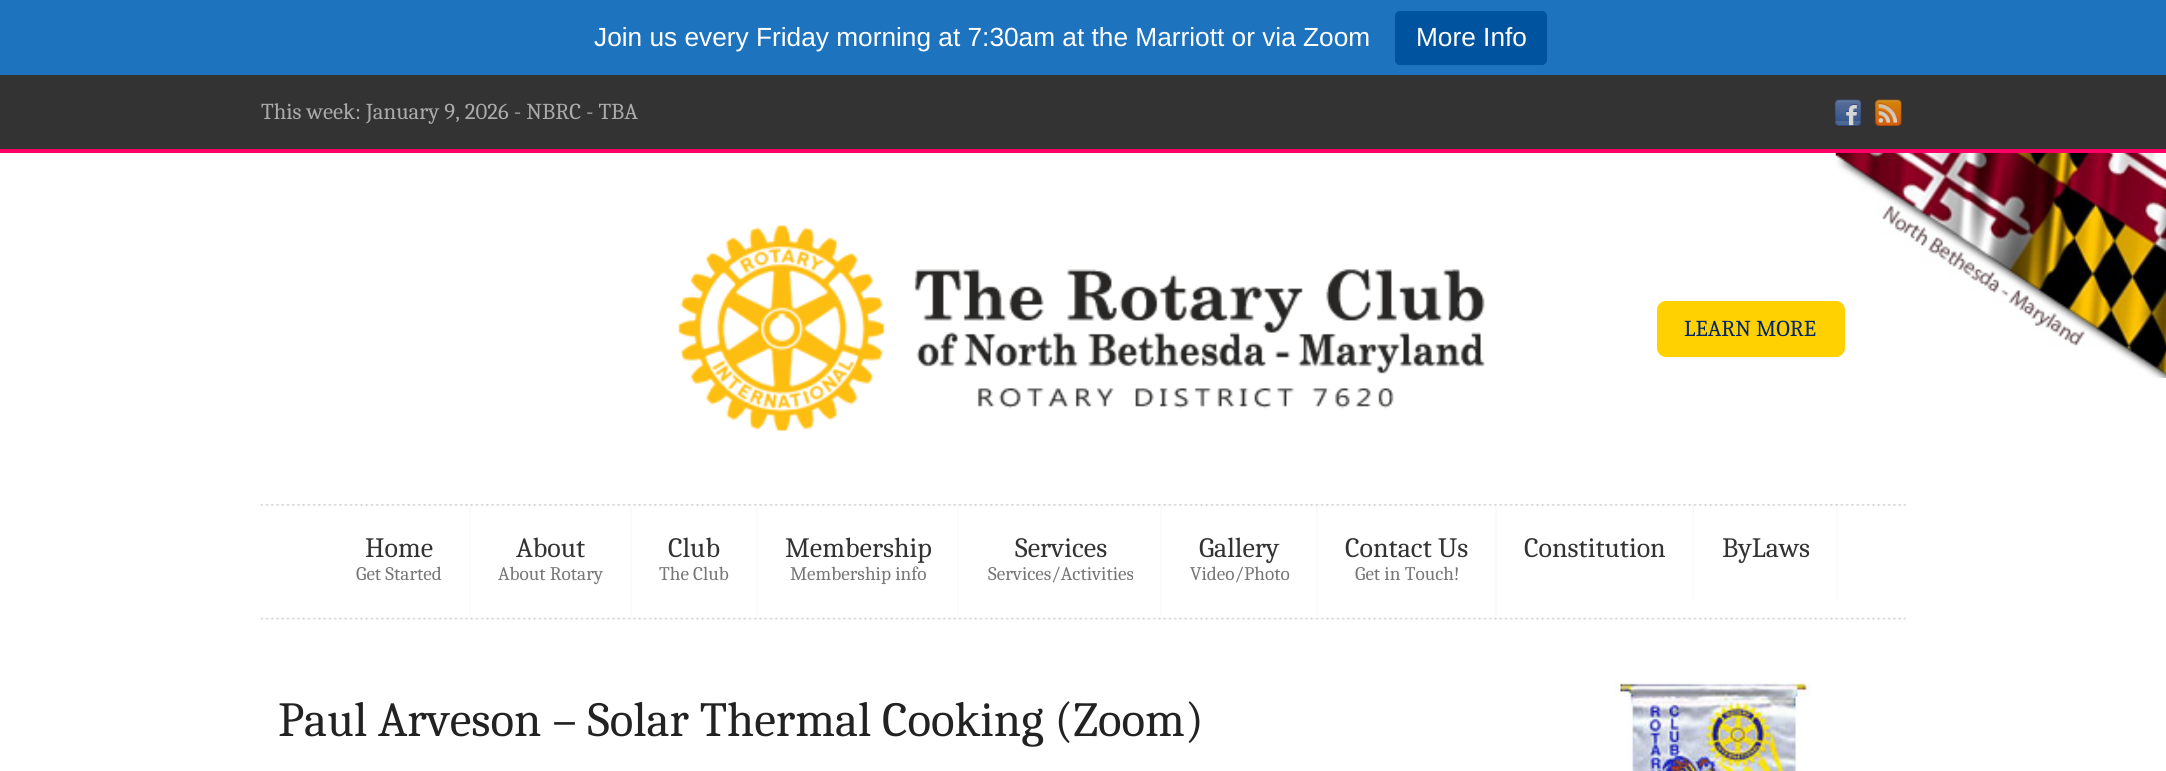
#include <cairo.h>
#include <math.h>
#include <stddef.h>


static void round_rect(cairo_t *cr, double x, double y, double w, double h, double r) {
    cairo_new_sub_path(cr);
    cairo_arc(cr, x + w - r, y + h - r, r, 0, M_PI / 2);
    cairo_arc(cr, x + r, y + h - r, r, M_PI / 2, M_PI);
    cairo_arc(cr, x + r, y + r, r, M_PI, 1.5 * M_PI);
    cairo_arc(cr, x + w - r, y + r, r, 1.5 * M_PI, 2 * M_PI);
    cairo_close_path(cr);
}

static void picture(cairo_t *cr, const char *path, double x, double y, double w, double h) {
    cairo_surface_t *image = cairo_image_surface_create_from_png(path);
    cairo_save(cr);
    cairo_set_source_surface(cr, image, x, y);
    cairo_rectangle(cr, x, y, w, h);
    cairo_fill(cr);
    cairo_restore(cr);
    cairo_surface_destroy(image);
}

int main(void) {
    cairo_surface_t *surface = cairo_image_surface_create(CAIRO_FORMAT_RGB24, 2166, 771);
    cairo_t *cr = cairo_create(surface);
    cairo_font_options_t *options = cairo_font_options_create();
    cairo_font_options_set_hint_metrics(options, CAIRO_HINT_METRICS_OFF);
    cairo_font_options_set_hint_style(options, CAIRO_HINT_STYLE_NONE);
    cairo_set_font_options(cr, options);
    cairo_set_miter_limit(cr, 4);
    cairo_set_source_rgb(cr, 1, 1, 1);
    cairo_paint(cr);
    cairo_set_source_rgb(cr, 0.118, 0.451, 0.745);
    cairo_rectangle(cr, 0, 0, 2166, 75);
    cairo_fill(cr);
    cairo_select_font_face(cr, "Liberation Sans", CAIRO_FONT_SLANT_NORMAL, CAIRO_FONT_WEIGHT_NORMAL);
    cairo_set_font_size(cr, 26.25);
    cairo_set_source_rgb(cr, 1, 1, 1);
    cairo_move_to(cr, 594, 46);
    cairo_show_text(cr, "Join us every Friday morning at 7:30am at the Marriott or via Zoom");
    cairo_set_source_rgb(cr, 0, 0.329, 0.624);
    round_rect(cr, 1395, 11, 152, 54, 5);
    cairo_fill(cr);
    cairo_set_source_rgb(cr, 1, 1, 1);
    cairo_move_to(cr, 1416, 46);
    cairo_show_text(cr, "More Info");
    cairo_set_source_rgb(cr, 0.2, 0.2, 0.2);
    cairo_rectangle(cr, 0, 75, 2166, 74);
    cairo_fill(cr);
    cairo_set_source_rgb(cr, 1, 0, 0.4);
    cairo_rectangle(cr, 0, 149, 2166, 4);
    cairo_fill(cr);
    cairo_select_font_face(cr, "Caladea", CAIRO_FONT_SLANT_NORMAL, CAIRO_FONT_WEIGHT_NORMAL);
    cairo_set_font_size(cr, 22.75);
    cairo_set_source_rgb(cr, 0.667, 0.667, 0.667);
    cairo_move_to(cr, 261, 119);
    cairo_show_text(cr, "This week: January 9, 2026 - NBRC - TBA");
    picture(cr, "img1.png", 1834, 99, 28, 28);
    picture(cr, "img2.png", 1875, 99, 27, 27);
    picture(cr, "img3.png", 1835, 153, 331, 225);
    picture(cr, "img4.png", 678, 225, 807, 206);
    cairo_set_source_rgb(cr, 1, 0.82, 0.004);
    round_rect(cr, 1657, 301, 188, 56, 9);
    cairo_fill(cr);
    cairo_set_source_rgb(cr, 0, 0.141, 0.424);
    cairo_move_to(cr, 1684, 336);
    cairo_show_text(cr, "LEARN MORE");
    picture(cr, "img5.png", 260, 504, 1646, 2);
    cairo_set_source_rgb(cr, 0.98, 0.98, 0.98);
    cairo_rectangle(cr, 469, 506, 2, 110);
    cairo_fill(cr);
    cairo_set_font_size(cr, 28);
    cairo_set_source_rgb(cr, 0.2, 0.2, 0.2);
    cairo_move_to(cr, 365, 557);
    cairo_show_text(cr, "Home");
    cairo_set_font_size(cr, 19.25);
    cairo_set_source_rgb(cr, 0.467, 0.467, 0.467);
    cairo_move_to(cr, 356, 580);
    cairo_show_text(cr, "Get Started");
    cairo_set_source_rgb(cr, 0.98, 0.98, 0.98);
    cairo_rectangle(cr, 630, 506, 2, 110);
    cairo_fill(cr);
    cairo_set_font_size(cr, 28);
    cairo_set_source_rgb(cr, 0.2, 0.2, 0.2);
    cairo_move_to(cr, 516, 557);
    cairo_show_text(cr, "About");
    cairo_set_font_size(cr, 19.25);
    cairo_set_source_rgb(cr, 0.467, 0.467, 0.467);
    cairo_move_to(cr, 498, 580);
    cairo_show_text(cr, "About Rotary");
    cairo_set_source_rgb(cr, 0.98, 0.98, 0.98);
    cairo_rectangle(cr, 756, 506, 2, 110);
    cairo_fill(cr);
    cairo_set_font_size(cr, 28);
    cairo_set_source_rgb(cr, 0.2, 0.2, 0.2);
    cairo_move_to(cr, 668, 557);
    cairo_show_text(cr, "Club");
    cairo_set_font_size(cr, 19.25);
    cairo_set_source_rgb(cr, 0.467, 0.467, 0.467);
    cairo_move_to(cr, 659, 580);
    cairo_show_text(cr, "The Club");
    cairo_set_source_rgb(cr, 0.98, 0.98, 0.98);
    cairo_rectangle(cr, 957, 506, 2, 110);
    cairo_fill(cr);
    cairo_set_font_size(cr, 28);
    cairo_set_source_rgb(cr, 0.2, 0.2, 0.2);
    cairo_move_to(cr, 785, 557);
    cairo_show_text(cr, "Membership");
    cairo_set_font_size(cr, 19.25);
    cairo_set_source_rgb(cr, 0.467, 0.467, 0.467);
    cairo_move_to(cr, 790, 580);
    cairo_show_text(cr, "Membership info");
    cairo_set_source_rgb(cr, 0.98, 0.98, 0.98);
    cairo_rectangle(cr, 1160, 506, 2, 110);
    cairo_fill(cr);
    cairo_set_font_size(cr, 28);
    cairo_set_source_rgb(cr, 0.2, 0.2, 0.2);
    cairo_move_to(cr, 1015, 557);
    cairo_show_text(cr, "Services");
    cairo_set_font_size(cr, 19.25);
    cairo_set_source_rgb(cr, 0.467, 0.467, 0.467);
    cairo_move_to(cr, 988, 580);
    cairo_show_text(cr, "Services/Activities");
    cairo_set_source_rgb(cr, 0.98, 0.98, 0.98);
    cairo_rectangle(cr, 1316, 506, 2, 110);
    cairo_fill(cr);
    cairo_set_font_size(cr, 28);
    cairo_set_source_rgb(cr, 0.2, 0.2, 0.2);
    cairo_move_to(cr, 1199, 557);
    cairo_show_text(cr, "Gallery");
    cairo_set_font_size(cr, 19.25);
    cairo_set_source_rgb(cr, 0.467, 0.467, 0.467);
    cairo_move_to(cr, 1190, 580);
    cairo_show_text(cr, "Video/Photo");
    cairo_set_source_rgb(cr, 0.98, 0.98, 0.98);
    cairo_rectangle(cr, 1495, 506, 2, 110);
    cairo_fill(cr);
    cairo_set_font_size(cr, 28);
    cairo_set_source_rgb(cr, 0.2, 0.2, 0.2);
    cairo_move_to(cr, 1345, 557);
    cairo_show_text(cr, "Contact Us");
    cairo_set_font_size(cr, 19.25);
    cairo_set_source_rgb(cr, 0.467, 0.467, 0.467);
    cairo_move_to(cr, 1355, 580);
    cairo_show_text(cr, "Get in Touch!");
    cairo_set_source_rgb(cr, 0.98, 0.98, 0.98);
    cairo_rectangle(cr, 1692, 506, 2, 94);
    cairo_fill(cr);
    cairo_set_font_size(cr, 28);
    cairo_set_source_rgb(cr, 0.2, 0.2, 0.2);
    cairo_move_to(cr, 1524, 557);
    cairo_show_text(cr, "Constitution");
    cairo_set_source_rgb(cr, 0.98, 0.98, 0.98);
    cairo_rectangle(cr, 1836, 506, 2, 94);
    cairo_fill(cr);
    cairo_set_source_rgb(cr, 0.2, 0.2, 0.2);
    cairo_move_to(cr, 1722, 557);
    cairo_show_text(cr, "ByLaws");
    picture(cr, "img6.png", 260, 617, 1646, 3);
    cairo_set_font_size(cr, 49);
    cairo_set_source_rgb(cr, 0.133, 0.133, 0.133);
    cairo_move_to(cr, 278, 736);
    cairo_show_text(cr, "Paul Arveson – Solar Thermal Cooking (Zoom)");
    picture(cr, "img7.png", 1615, 682, 196, 89);
    cairo_surface_write_to_png(surface, "page.png");
    cairo_font_options_destroy(options);
    cairo_destroy(cr);
    cairo_surface_destroy(surface);
    return 0;
}
